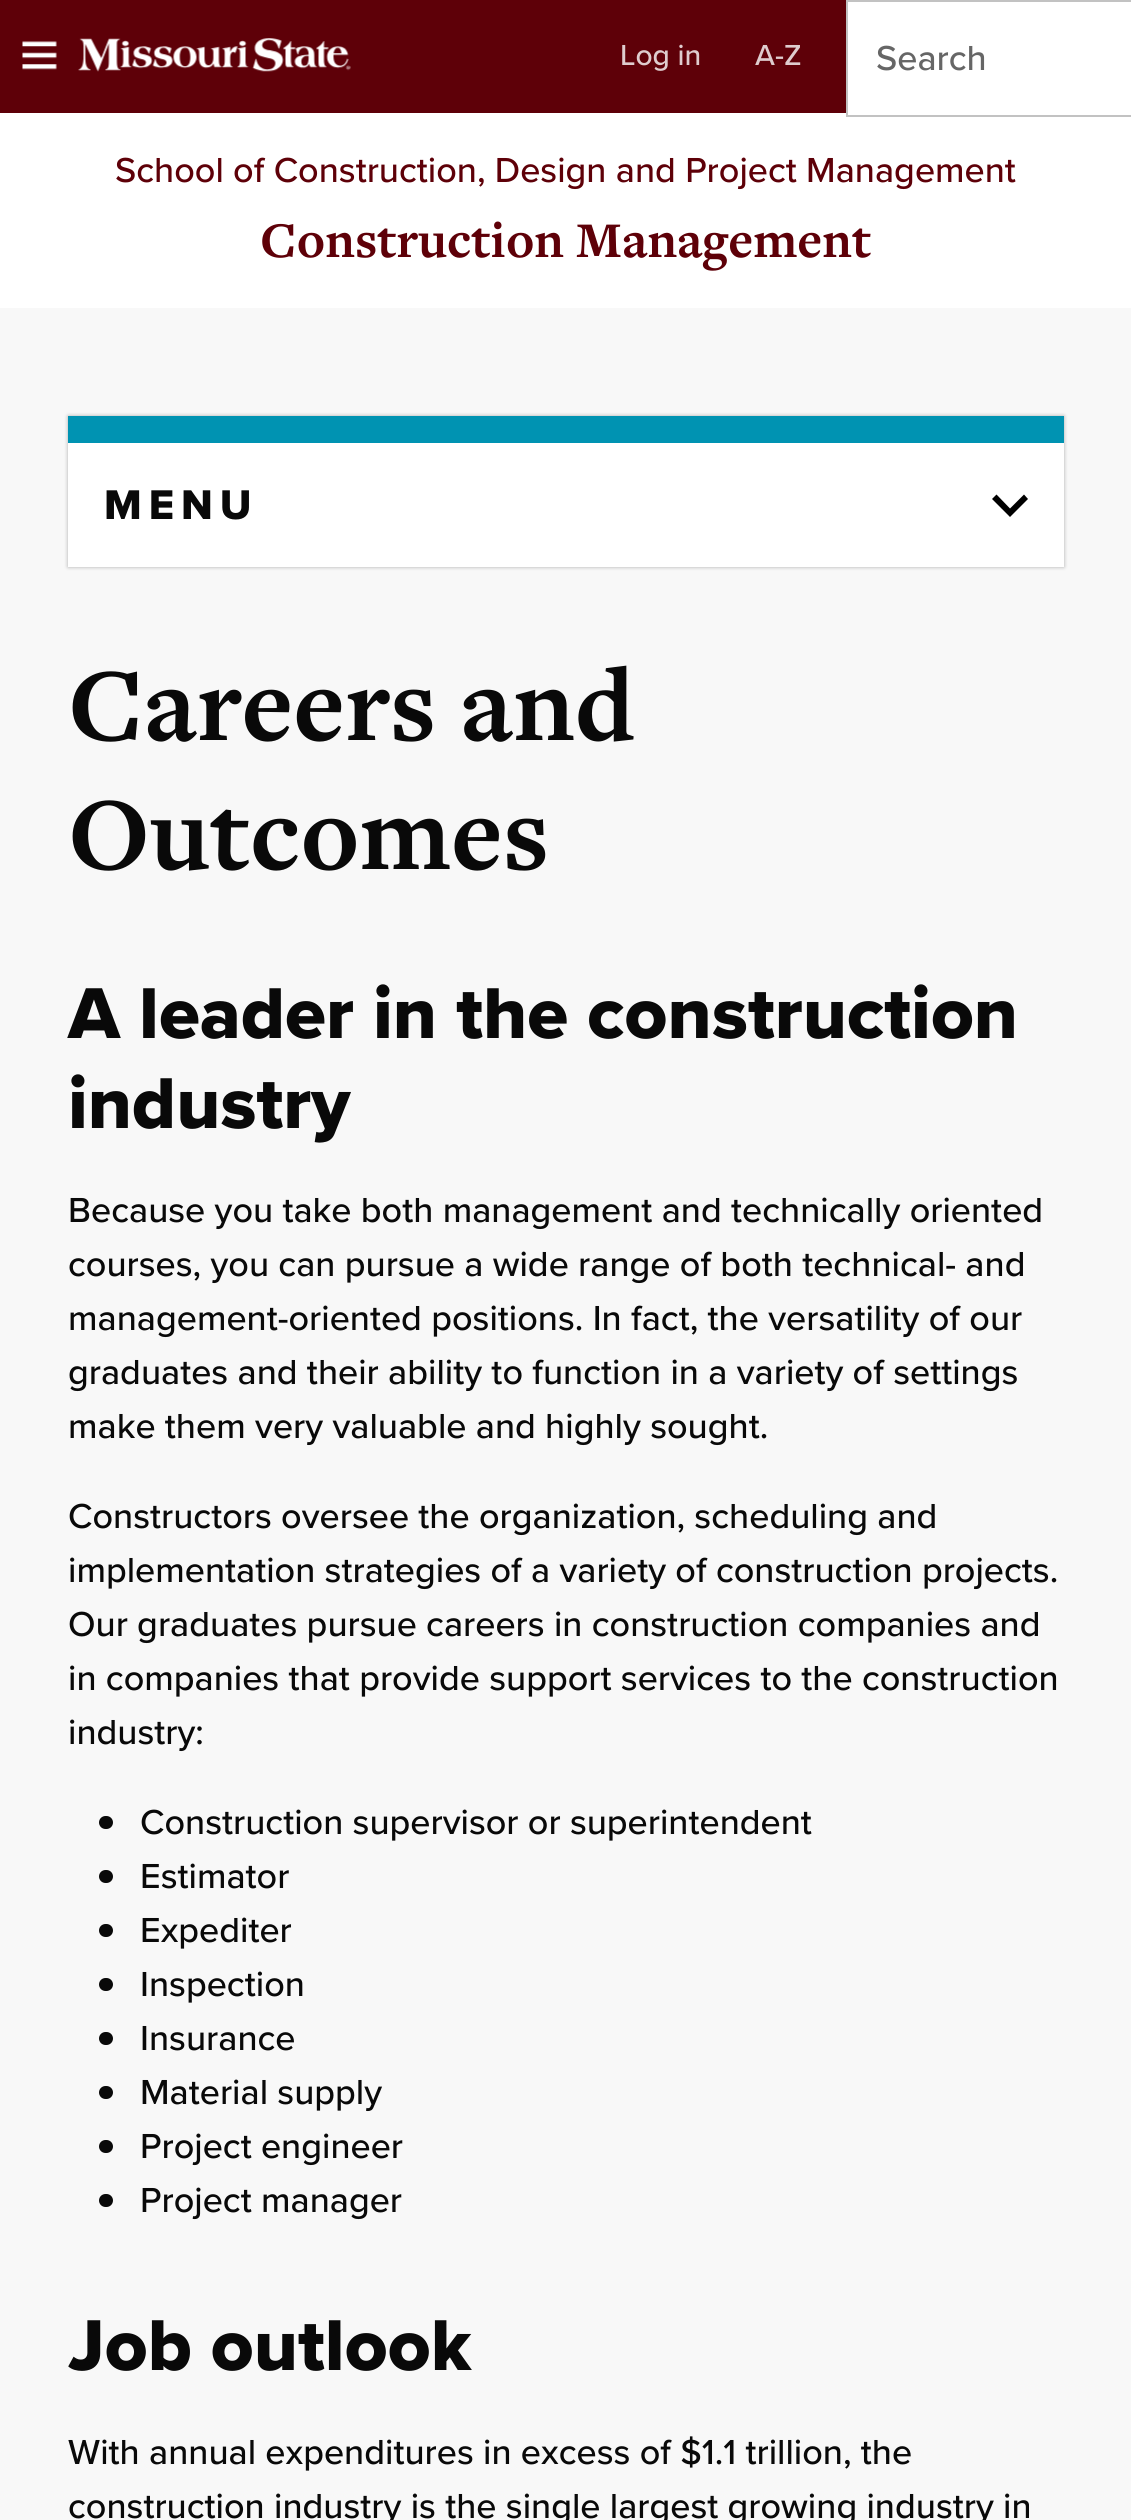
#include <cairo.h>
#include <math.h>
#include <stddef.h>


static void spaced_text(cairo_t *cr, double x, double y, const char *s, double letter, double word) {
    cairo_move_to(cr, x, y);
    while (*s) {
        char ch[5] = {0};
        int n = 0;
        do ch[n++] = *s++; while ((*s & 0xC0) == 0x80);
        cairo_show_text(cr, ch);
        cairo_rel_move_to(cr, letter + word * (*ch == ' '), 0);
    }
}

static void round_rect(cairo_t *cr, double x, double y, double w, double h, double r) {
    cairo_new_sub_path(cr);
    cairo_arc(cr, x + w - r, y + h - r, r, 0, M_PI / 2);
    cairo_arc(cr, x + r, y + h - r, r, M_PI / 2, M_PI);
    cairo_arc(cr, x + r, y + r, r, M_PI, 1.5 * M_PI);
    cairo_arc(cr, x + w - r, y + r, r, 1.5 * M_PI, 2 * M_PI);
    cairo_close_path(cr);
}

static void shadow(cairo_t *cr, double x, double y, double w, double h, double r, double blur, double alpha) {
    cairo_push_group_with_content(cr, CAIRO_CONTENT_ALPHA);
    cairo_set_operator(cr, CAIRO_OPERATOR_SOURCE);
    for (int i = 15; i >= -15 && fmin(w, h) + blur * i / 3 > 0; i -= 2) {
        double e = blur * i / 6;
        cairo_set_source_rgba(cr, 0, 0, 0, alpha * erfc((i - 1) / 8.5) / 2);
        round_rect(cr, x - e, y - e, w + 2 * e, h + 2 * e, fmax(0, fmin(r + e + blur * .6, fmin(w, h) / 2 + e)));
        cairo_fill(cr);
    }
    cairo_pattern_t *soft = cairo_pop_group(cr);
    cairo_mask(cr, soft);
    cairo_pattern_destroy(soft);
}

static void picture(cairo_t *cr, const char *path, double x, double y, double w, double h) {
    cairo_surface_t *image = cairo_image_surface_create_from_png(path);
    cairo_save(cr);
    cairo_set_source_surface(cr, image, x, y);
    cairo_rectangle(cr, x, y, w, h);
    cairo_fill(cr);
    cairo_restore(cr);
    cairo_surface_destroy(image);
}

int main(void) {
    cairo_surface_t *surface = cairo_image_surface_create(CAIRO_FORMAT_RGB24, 1131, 2520);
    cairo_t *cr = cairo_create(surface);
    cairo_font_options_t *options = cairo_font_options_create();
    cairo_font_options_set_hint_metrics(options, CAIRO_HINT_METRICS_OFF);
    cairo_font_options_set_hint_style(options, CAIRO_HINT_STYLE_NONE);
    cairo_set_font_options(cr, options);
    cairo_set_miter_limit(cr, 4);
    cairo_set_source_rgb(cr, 0.969, 0.969, 0.969);
    cairo_paint(cr);
    cairo_set_source_rgb(cr, 0.369, 0, 0.035);
    cairo_rectangle(cr, 0, 0, 846, 113);
    cairo_fill(cr);
    picture(cr, "img1.png", 22, 38, 329, 34);
    cairo_select_font_face(cr, "Proxima Nova Medium", CAIRO_FONT_SLANT_NORMAL, CAIRO_FONT_WEIGHT_NORMAL);
    cairo_set_font_size(cr, 30);
    cairo_set_source_rgb(cr, 0.875, 0.8, 0.808);
    cairo_move_to(cr, 620, 65);
    cairo_show_text(cr, "Log in");
    cairo_move_to(cr, 755, 65);
    cairo_show_text(cr, "A-Z");
    cairo_set_source_rgb(cr, 1, 1, 1);
    cairo_rectangle(cr, 848, 2, 283, 111);
    cairo_fill(cr);
    cairo_rectangle(cr, 0, 113, 1131, 195);
    cairo_fill(cr);
    cairo_rectangle(cr, 847, 1, 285, 115);
    cairo_set_source_rgb(cr, 0.761, 0.761, 0.761);
    cairo_stroke(cr);
    cairo_set_font_size(cr, 36);
    cairo_set_source_rgb(cr, 0.4, 0.4, 0.4);
    cairo_move_to(cr, 876, 70);
    cairo_show_text(cr, "Search");
    cairo_set_source_rgb(cr, 0.369, 0, 0.035);
    cairo_move_to(cr, 115, 182);
    cairo_show_text(cr, "School of Construction, Design and Project Management");
    cairo_select_font_face(cr, "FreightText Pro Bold", CAIRO_FONT_SLANT_NORMAL, CAIRO_FONT_WEIGHT_BOLD);
    cairo_set_font_size(cr, 51.8);
    cairo_move_to(cr, 260, 257);
    cairo_show_text(cr, "Construction Management");
    cairo_set_source_rgb(cr, 0, 0, 0);
    shadow(cr, 68, 416, 996, 151, 0, 2, 0.3);
    cairo_set_source_rgb(cr, 1, 1, 1);
    cairo_rectangle(cr, 68, 443, 996, 124);
    cairo_fill(cr);
    cairo_set_source_rgb(cr, 0, 0.576, 0.698);
    cairo_rectangle(cr, 68, 416, 996, 27);
    cairo_fill(cr);
    cairo_select_font_face(cr, "Proxima Nova ExtraBold", CAIRO_FONT_SLANT_NORMAL, CAIRO_FONT_WEIGHT_NORMAL);
    cairo_set_font_size(cr, 43);
    cairo_set_source_rgb(cr, 0.039, 0.039, 0.039);
    spaced_text(cr, 104, 519, "MENU", 7, 0);
    cairo_set_source_rgb(cr, 0, 0, 0);
    cairo_set_fill_rule(cr, CAIRO_FILL_RULE_EVEN_ODD);
    cairo_new_path(cr);
    cairo_move_to(cr, 1024, 494.5);
    cairo_line_to(cr, 1010, 508.5);
    cairo_line_to(cr, 996.5, 494.5);
    cairo_line_to(cr, 992, 499);
    cairo_line_to(cr, 1010, 517);
    cairo_line_to(cr, 1028, 499);
    cairo_close_path(cr);
    cairo_fill(cr);
    cairo_select_font_face(cr, "FreightText Pro Bold", CAIRO_FONT_SLANT_NORMAL, CAIRO_FONT_WEIGHT_BOLD);
    cairo_set_font_size(cr, 107.5);
    cairo_set_source_rgb(cr, 0.039, 0.039, 0.039);
    cairo_move_to(cr, 68, 740);
    cairo_show_text(cr, "Careers and");
    cairo_move_to(cr, 68, 869);
    cairo_show_text(cr, "Outcomes");
    cairo_select_font_face(cr, "Proxima Nova ExtraBold", CAIRO_FONT_SLANT_NORMAL, CAIRO_FONT_WEIGHT_NORMAL);
    cairo_set_font_size(cr, 74.6);
    cairo_move_to(cr, 68, 1038);
    cairo_show_text(cr, "A leader in the construction");
    cairo_move_to(cr, 68, 1128);
    cairo_show_text(cr, "industry");
    cairo_select_font_face(cr, "Proxima Nova Medium", CAIRO_FONT_SLANT_NORMAL, CAIRO_FONT_WEIGHT_NORMAL);
    cairo_set_font_size(cr, 36);
    cairo_move_to(cr, 68, 1222);
    cairo_show_text(cr, "Because you take both management and technically oriented");
    cairo_move_to(cr, 68, 1276);
    cairo_show_text(cr, "courses, you can pursue a wide range of both technical- and");
    cairo_move_to(cr, 68, 1330);
    cairo_show_text(cr, "management-oriented positions. In fact, the versatility of our");
    cairo_move_to(cr, 68, 1384);
    cairo_show_text(cr, "graduates and their ability to function in a variety of settings");
    cairo_move_to(cr, 68, 1438);
    cairo_show_text(cr, "make them very valuable and highly sought.");
    cairo_move_to(cr, 68, 1528);
    cairo_show_text(cr, "Constructors oversee the organization, scheduling and");
    cairo_move_to(cr, 68, 1582);
    cairo_show_text(cr, "implementation strategies of a variety of construction projects.");
    cairo_move_to(cr, 68, 1636);
    cairo_show_text(cr, "Our graduates pursue careers in construction companies and");
    cairo_move_to(cr, 68, 1690);
    cairo_show_text(cr, "in companies that provide support services to the construction");
    cairo_move_to(cr, 68, 1744);
    cairo_show_text(cr, "industry:");
    round_rect(cr, 99, 1816, 14, 13, 6.5);
    cairo_fill(cr);
    cairo_move_to(cr, 140, 1834);
    cairo_show_text(cr, "Construction supervisor or superintendent");
    round_rect(cr, 99, 1870, 14, 13, 6.5);
    cairo_fill(cr);
    cairo_move_to(cr, 140, 1888);
    cairo_show_text(cr, "Estimator");
    round_rect(cr, 99, 1924, 14, 13, 6.5);
    cairo_fill(cr);
    cairo_move_to(cr, 140, 1942);
    cairo_show_text(cr, "Expediter");
    round_rect(cr, 99, 1978, 14, 13, 6.5);
    cairo_fill(cr);
    cairo_move_to(cr, 140, 1996);
    cairo_show_text(cr, "Inspection");
    round_rect(cr, 99, 2032, 14, 13, 6.5);
    cairo_fill(cr);
    cairo_move_to(cr, 140, 2050);
    cairo_show_text(cr, "Insurance");
    round_rect(cr, 99, 2086, 14, 13, 6.5);
    cairo_fill(cr);
    cairo_move_to(cr, 140, 2104);
    cairo_show_text(cr, "Material supply");
    round_rect(cr, 99, 2140, 14, 13, 6.5);
    cairo_fill(cr);
    cairo_move_to(cr, 140, 2158);
    cairo_show_text(cr, "Project engineer");
    round_rect(cr, 99, 2194, 14, 13, 6.5);
    cairo_fill(cr);
    cairo_move_to(cr, 140, 2212);
    cairo_show_text(cr, "Project manager");
    cairo_select_font_face(cr, "Proxima Nova ExtraBold", CAIRO_FONT_SLANT_NORMAL, CAIRO_FONT_WEIGHT_NORMAL);
    cairo_set_font_size(cr, 74.6);
    cairo_move_to(cr, 68, 2370);
    cairo_show_text(cr, "Job outlook");
    cairo_select_font_face(cr, "Proxima Nova Medium", CAIRO_FONT_SLANT_NORMAL, CAIRO_FONT_WEIGHT_NORMAL);
    cairo_set_font_size(cr, 36);
    cairo_move_to(cr, 68, 2464);
    cairo_show_text(cr, "With annual expenditures in excess of $1.1 trillion, the");
    cairo_move_to(cr, 68, 2518);
    cairo_show_text(cr, "construction industry is the single largest growing industry in");
    cairo_surface_write_to_png(surface, "page.png");
    cairo_font_options_destroy(options);
    cairo_destroy(cr);
    cairo_surface_destroy(surface);
    return 0;
}
